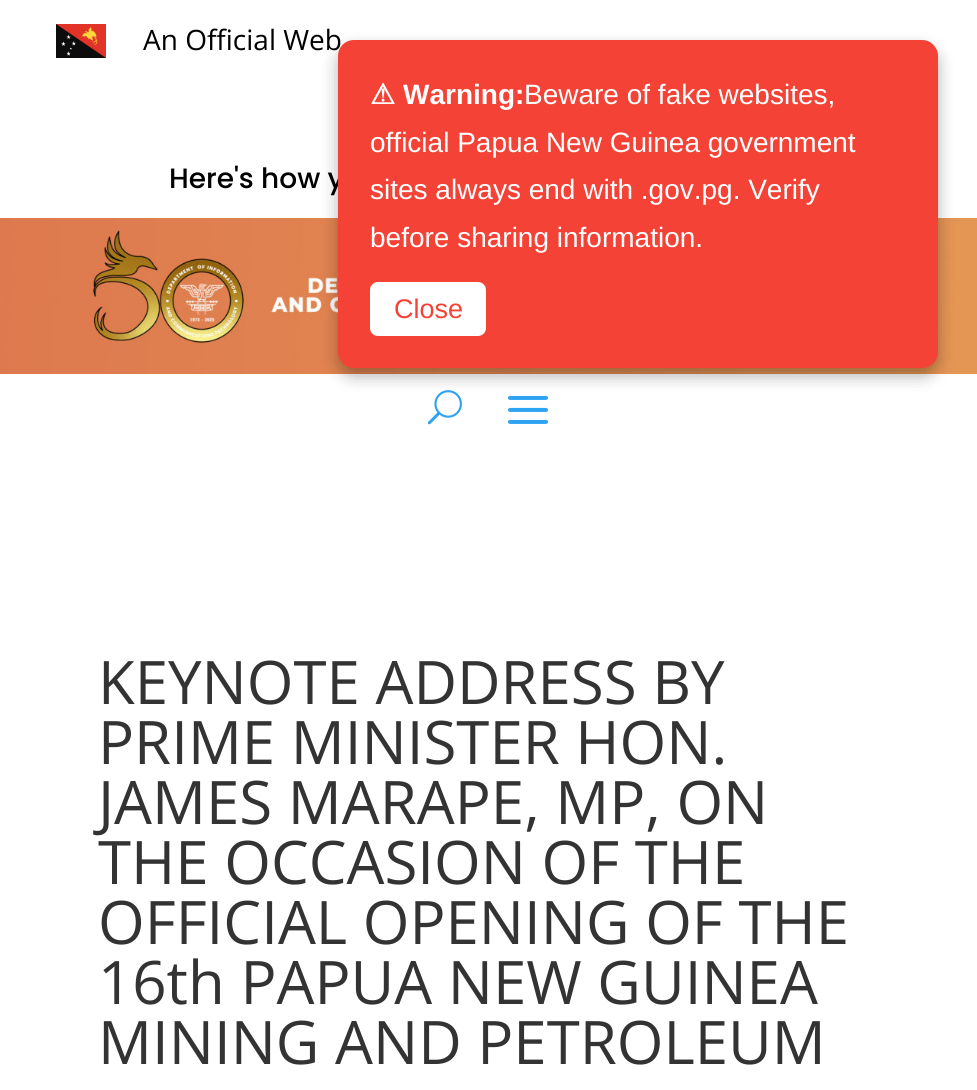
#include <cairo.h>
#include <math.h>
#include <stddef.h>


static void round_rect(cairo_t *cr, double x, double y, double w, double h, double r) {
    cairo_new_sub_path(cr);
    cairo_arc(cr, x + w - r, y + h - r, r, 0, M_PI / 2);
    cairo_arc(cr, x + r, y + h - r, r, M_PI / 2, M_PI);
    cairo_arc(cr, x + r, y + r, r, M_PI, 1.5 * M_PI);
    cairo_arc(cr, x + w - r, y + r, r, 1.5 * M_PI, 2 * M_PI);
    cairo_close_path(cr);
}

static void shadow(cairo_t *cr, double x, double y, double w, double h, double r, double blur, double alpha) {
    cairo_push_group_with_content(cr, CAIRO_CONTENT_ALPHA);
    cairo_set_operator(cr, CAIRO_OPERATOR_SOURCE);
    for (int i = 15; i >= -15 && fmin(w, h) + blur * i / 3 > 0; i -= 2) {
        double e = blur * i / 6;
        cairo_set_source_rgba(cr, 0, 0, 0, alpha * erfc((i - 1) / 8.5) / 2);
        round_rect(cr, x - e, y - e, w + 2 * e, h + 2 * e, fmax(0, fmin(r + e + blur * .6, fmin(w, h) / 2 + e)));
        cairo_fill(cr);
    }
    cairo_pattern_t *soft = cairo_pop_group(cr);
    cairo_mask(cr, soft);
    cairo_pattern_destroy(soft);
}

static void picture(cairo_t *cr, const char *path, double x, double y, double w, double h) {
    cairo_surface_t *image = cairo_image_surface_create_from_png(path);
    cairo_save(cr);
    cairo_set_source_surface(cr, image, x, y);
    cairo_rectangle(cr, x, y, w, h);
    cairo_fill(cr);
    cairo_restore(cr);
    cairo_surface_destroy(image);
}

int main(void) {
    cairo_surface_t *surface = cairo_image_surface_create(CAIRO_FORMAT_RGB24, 977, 1090);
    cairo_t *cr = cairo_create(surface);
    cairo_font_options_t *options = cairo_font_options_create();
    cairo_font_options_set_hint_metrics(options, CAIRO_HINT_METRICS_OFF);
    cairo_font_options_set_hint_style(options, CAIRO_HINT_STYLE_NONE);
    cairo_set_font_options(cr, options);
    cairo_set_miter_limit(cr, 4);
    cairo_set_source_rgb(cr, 1, 1, 1);
    cairo_paint(cr);
    picture(cr, "img1.png", 56, 24, 50, 34);
    cairo_select_font_face(cr, "Open Sans", CAIRO_FONT_SLANT_NORMAL, CAIRO_FONT_WEIGHT_NORMAL);
    cairo_set_font_size(cr, 28);
    cairo_set_source_rgb(cr, 0, 0, 0);
    cairo_move_to(cr, 143, 50);
    cairo_show_text(cr, "An Official Web");
    cairo_select_font_face(cr, "Poppins Medium", CAIRO_FONT_SLANT_NORMAL, CAIRO_FONT_WEIGHT_NORMAL);
    cairo_move_to(cr, 169, 188);
    cairo_show_text(cr, "Here's how y");
    picture(cr, "img2.png", 0, 218, 977, 156);
    picture(cr, "img3.png", 427, 390, 35, 35);
    picture(cr, "img4.png", 508, 395, 40, 29);
    cairo_select_font_face(cr, "Open Sans", CAIRO_FONT_SLANT_NORMAL, CAIRO_FONT_WEIGHT_NORMAL);
    cairo_set_font_size(cr, 60);
    cairo_set_source_rgb(cr, 0.2, 0.2, 0.2);
    cairo_move_to(cr, 98, 704);
    cairo_show_text(cr, "KEYNOTE ADDRESS BY");
    cairo_move_to(cr, 98, 764);
    cairo_show_text(cr, "PRIME MINISTER HON.");
    cairo_move_to(cr, 98, 824);
    cairo_show_text(cr, "JAMES MARAPE, MP, ON");
    cairo_move_to(cr, 98, 884);
    cairo_show_text(cr, "THE OCCASION OF THE");
    cairo_move_to(cr, 98, 944);
    cairo_show_text(cr, "OFFICIAL OPENING OF THE");
    cairo_move_to(cr, 98, 1004);
    cairo_show_text(cr, "16th PAPUA NEW GUINEA");
    cairo_move_to(cr, 98, 1064);
    cairo_show_text(cr, "MINING AND PETROLEUM");
    cairo_set_source_rgb(cr, 0, 0, 0);
    shadow(cr, 338, 48, 600, 328, 16, 8, 0.3);
    cairo_set_source_rgb(cr, 0.957, 0.263, 0.212);
    round_rect(cr, 338, 40, 600, 328, 16);
    cairo_fill(cr);
    cairo_select_font_face(cr, "DejaVu Sans", CAIRO_FONT_SLANT_NORMAL, CAIRO_FONT_WEIGHT_BOLD);
    cairo_set_font_size(cr, 28);
    cairo_set_source_rgb(cr, 1, 1, 1);
    cairo_move_to(cr, 370, 104);
    cairo_show_text(cr, "⚠");
    cairo_select_font_face(cr, "Liberation Sans", CAIRO_FONT_SLANT_NORMAL, CAIRO_FONT_WEIGHT_BOLD);
    cairo_move_to(cr, 403, 104);
    cairo_show_text(cr, "Warning:");
    cairo_select_font_face(cr, "Liberation Sans", CAIRO_FONT_SLANT_NORMAL, CAIRO_FONT_WEIGHT_NORMAL);
    cairo_move_to(cr, 524, 104);
    cairo_show_text(cr, "Beware of fake websites,");
    cairo_move_to(cr, 370, 152);
    cairo_show_text(cr, "official Papua New Guinea government");
    cairo_move_to(cr, 370, 199);
    cairo_show_text(cr, "sites always end with .gov.pg. Verify");
    cairo_move_to(cr, 370, 247);
    cairo_show_text(cr, "before sharing information.");
    round_rect(cr, 370, 282, 116, 54, 8);
    cairo_fill(cr);
    cairo_set_font_size(cr, 27);
    cairo_set_source_rgb(cr, 0.957, 0.263, 0.212);
    cairo_move_to(cr, 394, 318);
    cairo_show_text(cr, "Close");
    cairo_surface_write_to_png(surface, "page.png");
    cairo_font_options_destroy(options);
    cairo_destroy(cr);
    cairo_surface_destroy(surface);
    return 0;
}
